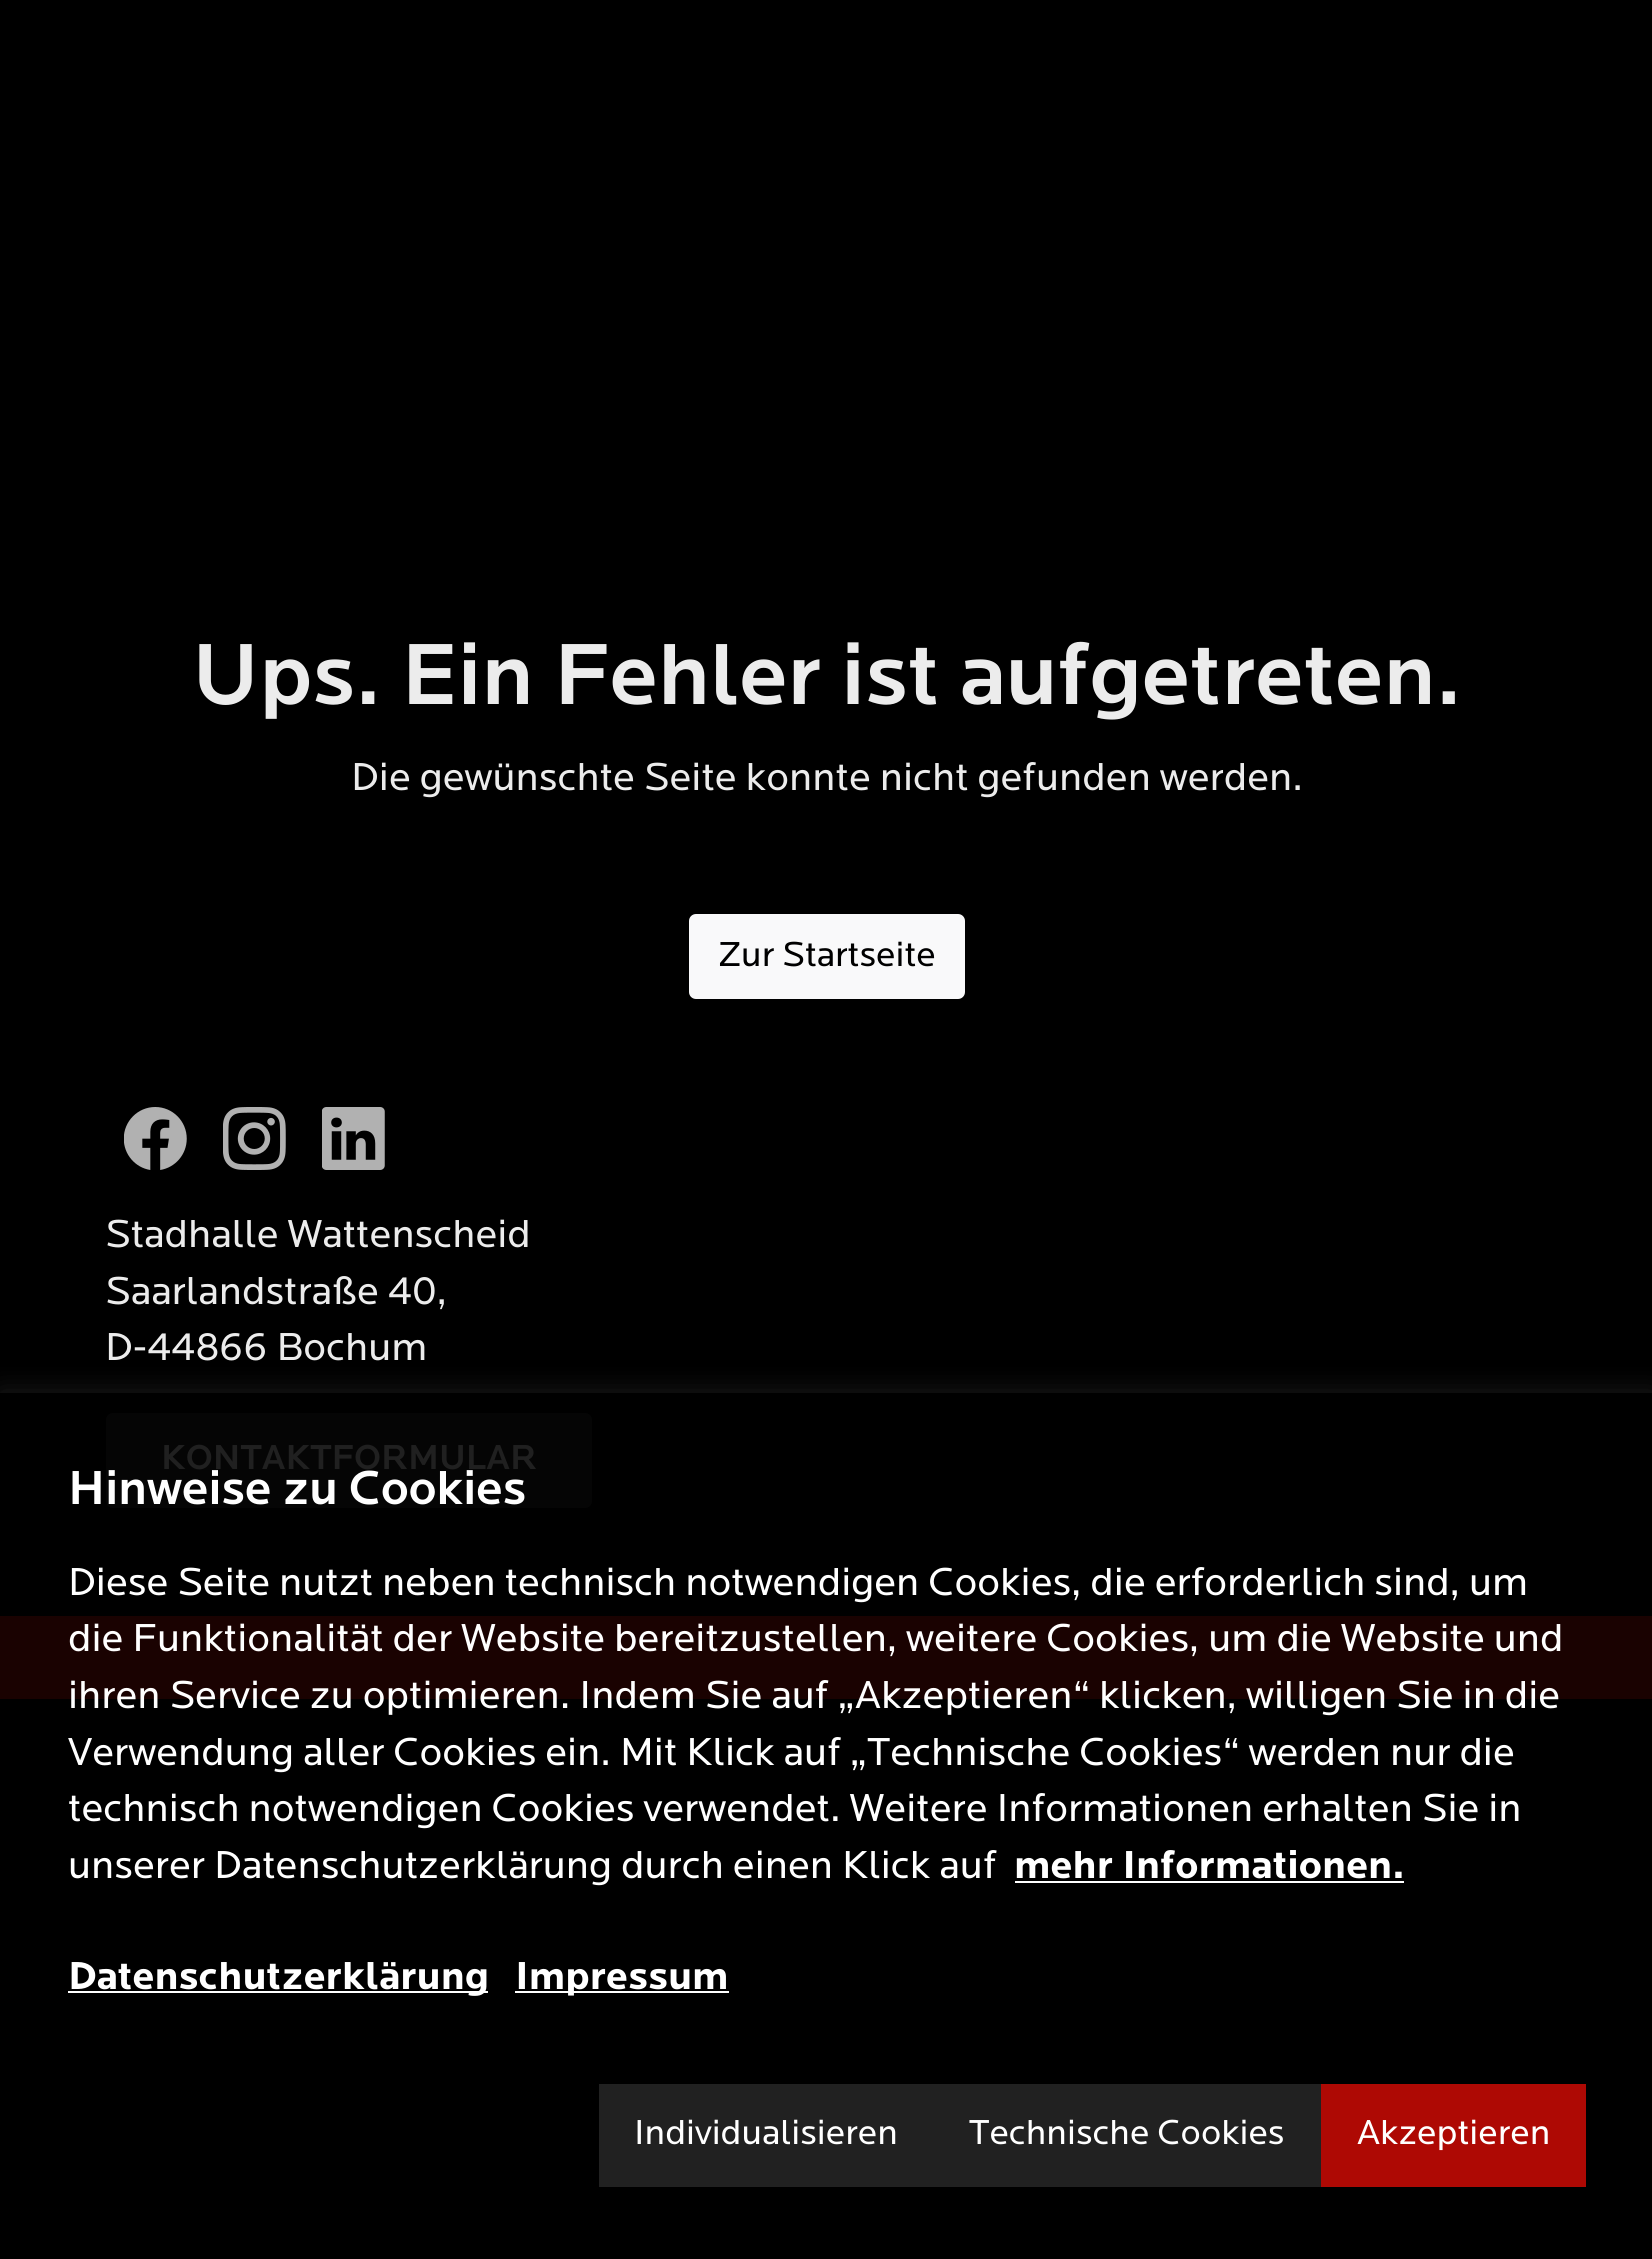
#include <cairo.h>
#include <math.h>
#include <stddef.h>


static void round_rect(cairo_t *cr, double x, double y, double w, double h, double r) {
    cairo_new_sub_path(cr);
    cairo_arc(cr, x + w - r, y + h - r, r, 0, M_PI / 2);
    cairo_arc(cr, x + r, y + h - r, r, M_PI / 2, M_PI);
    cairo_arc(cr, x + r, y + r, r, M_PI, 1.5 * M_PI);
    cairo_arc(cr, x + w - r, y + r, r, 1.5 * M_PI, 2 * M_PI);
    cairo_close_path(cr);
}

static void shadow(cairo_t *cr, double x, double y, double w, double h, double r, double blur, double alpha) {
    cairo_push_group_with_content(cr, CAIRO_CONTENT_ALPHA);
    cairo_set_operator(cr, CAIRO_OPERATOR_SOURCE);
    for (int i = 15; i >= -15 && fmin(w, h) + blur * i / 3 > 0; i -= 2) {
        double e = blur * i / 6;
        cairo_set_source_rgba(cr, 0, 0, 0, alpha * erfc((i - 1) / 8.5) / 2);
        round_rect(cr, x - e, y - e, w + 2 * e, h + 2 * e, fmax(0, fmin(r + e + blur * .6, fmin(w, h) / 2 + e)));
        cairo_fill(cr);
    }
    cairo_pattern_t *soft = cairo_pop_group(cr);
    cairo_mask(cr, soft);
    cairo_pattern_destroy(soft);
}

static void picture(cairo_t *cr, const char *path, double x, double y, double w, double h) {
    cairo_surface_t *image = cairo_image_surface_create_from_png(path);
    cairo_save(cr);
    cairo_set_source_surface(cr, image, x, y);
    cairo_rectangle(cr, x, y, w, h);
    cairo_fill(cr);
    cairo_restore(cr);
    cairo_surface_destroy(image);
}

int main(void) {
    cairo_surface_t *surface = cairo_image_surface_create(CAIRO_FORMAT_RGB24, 1652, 2259);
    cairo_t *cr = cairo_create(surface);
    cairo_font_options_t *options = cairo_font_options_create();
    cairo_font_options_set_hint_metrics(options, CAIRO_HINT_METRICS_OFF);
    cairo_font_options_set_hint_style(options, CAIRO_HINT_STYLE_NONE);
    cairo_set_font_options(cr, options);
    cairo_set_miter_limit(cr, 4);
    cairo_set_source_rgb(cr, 0, 0, 0);
    cairo_paint(cr);
    cairo_select_font_face(cr, "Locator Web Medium", CAIRO_FONT_SLANT_NORMAL, CAIRO_FONT_WEIGHT_NORMAL);
    cairo_set_font_size(cr, 90);
    cairo_set_source_rgb(cr, 0.925, 0.925, 0.925);
    cairo_move_to(cr, 192, 704);
    cairo_show_text(cr, "Ups. Ein Fehler ist aufgetreten.");
    cairo_select_font_face(cr, "Locator Web", CAIRO_FONT_SLANT_NORMAL, CAIRO_FONT_WEIGHT_NORMAL);
    cairo_set_font_size(cr, 40.5);
    cairo_move_to(cr, 351, 790);
    cairo_show_text(cr, "Die gewünschte Seite konnte nicht gefunden werden.");
    cairo_set_source_rgb(cr, 0.973, 0.976, 0.98);
    round_rect(cr, 690, 915, 274, 83, 6);
    cairo_fill_preserve(cr);
    cairo_stroke(cr);
    cairo_set_font_size(cr, 36);
    cairo_set_source_rgb(cr, 0, 0, 0);
    cairo_move_to(cr, 718, 966);
    cairo_show_text(cr, "Zur Startseite");
    picture(cr, "img1.png", 124, 1107, 63, 63);
    picture(cr, "img2.png", 223, 1107, 63, 63);
    picture(cr, "img3.png", 322, 1107, 63, 63);
    cairo_set_font_size(cr, 40.5);
    cairo_set_source_rgb(cr, 0.925, 0.925, 0.925);
    cairo_move_to(cr, 105, 1247);
    cairo_show_text(cr, "Stadhalle Wattenscheid");
    cairo_move_to(cr, 105, 1304);
    cairo_show_text(cr, "Saarlandstraße 40,");
    cairo_move_to(cr, 105, 1360);
    cairo_show_text(cr, "D-44866 Bochum");
    cairo_set_source_rgb(cr, 0.02, 0.02, 0.02);
    round_rect(cr, 106, 1413, 486, 95, 7);
    cairo_fill(cr);
    cairo_select_font_face(cr, "Locator Web Medium", CAIRO_FONT_SLANT_NORMAL, CAIRO_FONT_WEIGHT_NORMAL);
    cairo_set_font_size(cr, 36);
    cairo_set_source_rgb(cr, 0.125, 0.125, 0.125);
    cairo_move_to(cr, 161, 1469);
    cairo_show_text(cr, "KONTAKTFORMULAR");
    cairo_set_source_rgb(cr, 0.102, 0.008, 0.004);
    cairo_rectangle(cr, 0, 1616, 1652, 83);
    cairo_fill(cr);
    cairo_save(cr);
    cairo_rectangle(cr, 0, 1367, 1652, 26);
    cairo_clip(cr);
    cairo_set_source_rgb(cr, 0.2, 0.2, 0.2);
    shadow(cr, 0, 1391, 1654, 866, 0, 13.5, 0.5);
    cairo_restore(cr);
    cairo_set_font_size(cr, 49.5);
    cairo_set_source_rgb(cr, 1, 1, 1);
    cairo_move_to(cr, 68, 1504);
    cairo_show_text(cr, "Hinweise zu Cookies");
    cairo_select_font_face(cr, "Locator Web", CAIRO_FONT_SLANT_NORMAL, CAIRO_FONT_WEIGHT_NORMAL);
    cairo_set_font_size(cr, 40.5);
    cairo_move_to(cr, 68, 1595);
    cairo_show_text(cr, "Diese Seite nutzt neben technisch notwendigen Cookies, die erforderlich sind, um");
    cairo_move_to(cr, 68, 1651);
    cairo_show_text(cr, "die Funktionalität der Website bereitzustellen, weitere Cookies, um die Website und");
    cairo_move_to(cr, 68, 1708);
    cairo_show_text(cr, "ihren Service zu optimieren. Indem Sie auf „Akzeptieren“ klicken, willigen Sie in die");
    cairo_move_to(cr, 68, 1765);
    cairo_show_text(cr, "Verwendung aller Cookies ein. Mit Klick auf „Technische Cookies“ werden nur die");
    cairo_move_to(cr, 68, 1821);
    cairo_show_text(cr, "technisch notwendigen Cookies verwendet. Weitere Informationen erhalten Sie in");
    cairo_move_to(cr, 68, 1878);
    cairo_show_text(cr, "unserer Datenschutzerklärung durch einen Klick auf");
    cairo_select_font_face(cr, "Locator Web", CAIRO_FONT_SLANT_NORMAL, CAIRO_FONT_WEIGHT_BOLD);
    cairo_move_to(cr, 1014, 1878);
    cairo_show_text(cr, "mehr Informationen.");
    cairo_rectangle(cr, 1015, 1881, 389, 2);
    cairo_fill(cr);
    cairo_rectangle(cr, 68, 1991, 420, 2);
    cairo_fill(cr);
    cairo_move_to(cr, 68, 1989);
    cairo_show_text(cr, "Datenschutzerklärung");
    cairo_rectangle(cr, 515, 1991, 214, 2);
    cairo_fill(cr);
    cairo_move_to(cr, 515, 1989);
    cairo_show_text(cr, "Impressum");
    cairo_set_source_rgb(cr, 0.129, 0.129, 0.129);
    cairo_rectangle(cr, 599, 2084, 722, 103);
    cairo_fill(cr);
    cairo_select_font_face(cr, "Locator Web", CAIRO_FONT_SLANT_NORMAL, CAIRO_FONT_WEIGHT_NORMAL);
    cairo_set_font_size(cr, 36);
    cairo_set_source_rgb(cr, 1, 1, 1);
    cairo_move_to(cr, 634, 2144);
    cairo_show_text(cr, "Individualisieren");
    cairo_move_to(cr, 969, 2144);
    cairo_show_text(cr, "Technische Cookies");
    cairo_set_source_rgb(cr, 0.682, 0.039, 0.016);
    cairo_rectangle(cr, 1321, 2084, 265, 103);
    cairo_fill(cr);
    cairo_set_source_rgb(cr, 1, 1, 1);
    cairo_move_to(cr, 1357, 2144);
    cairo_show_text(cr, "Akzeptieren");
    cairo_surface_write_to_png(surface, "page.png");
    cairo_font_options_destroy(options);
    cairo_destroy(cr);
    cairo_surface_destroy(surface);
    return 0;
}
